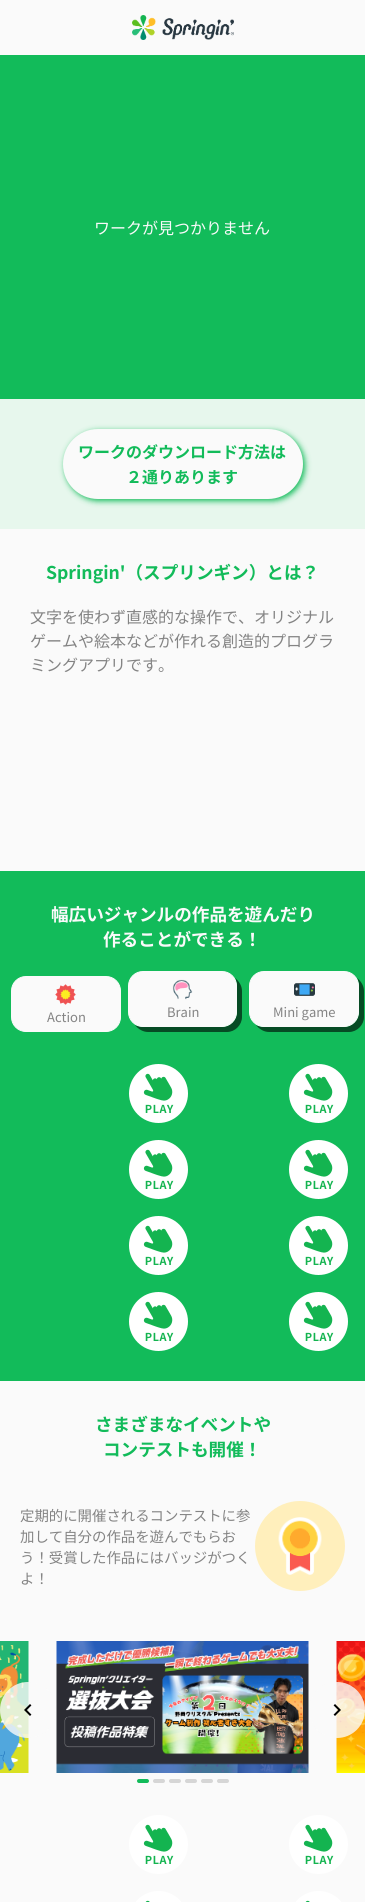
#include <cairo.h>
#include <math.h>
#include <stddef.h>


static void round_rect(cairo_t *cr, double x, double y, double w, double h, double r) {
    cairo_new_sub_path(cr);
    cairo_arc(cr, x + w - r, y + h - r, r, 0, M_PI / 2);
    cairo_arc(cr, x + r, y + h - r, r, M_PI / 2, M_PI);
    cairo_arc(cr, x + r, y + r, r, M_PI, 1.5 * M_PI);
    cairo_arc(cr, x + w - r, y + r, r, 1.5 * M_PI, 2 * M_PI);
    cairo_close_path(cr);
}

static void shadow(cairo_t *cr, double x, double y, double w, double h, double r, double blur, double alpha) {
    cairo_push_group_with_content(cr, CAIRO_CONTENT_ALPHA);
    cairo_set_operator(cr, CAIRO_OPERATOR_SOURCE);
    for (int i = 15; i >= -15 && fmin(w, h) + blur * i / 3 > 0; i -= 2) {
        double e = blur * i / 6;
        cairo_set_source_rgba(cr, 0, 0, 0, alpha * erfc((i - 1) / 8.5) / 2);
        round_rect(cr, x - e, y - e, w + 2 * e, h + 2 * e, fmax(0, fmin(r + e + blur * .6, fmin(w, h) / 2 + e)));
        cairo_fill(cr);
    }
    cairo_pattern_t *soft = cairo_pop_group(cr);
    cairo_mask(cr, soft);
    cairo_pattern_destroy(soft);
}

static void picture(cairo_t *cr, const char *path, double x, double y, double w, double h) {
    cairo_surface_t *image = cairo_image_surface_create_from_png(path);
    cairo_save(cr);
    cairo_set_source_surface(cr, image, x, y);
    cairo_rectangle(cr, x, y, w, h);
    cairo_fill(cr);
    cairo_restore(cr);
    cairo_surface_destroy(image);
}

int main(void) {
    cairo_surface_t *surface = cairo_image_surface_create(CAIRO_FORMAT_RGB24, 365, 1902);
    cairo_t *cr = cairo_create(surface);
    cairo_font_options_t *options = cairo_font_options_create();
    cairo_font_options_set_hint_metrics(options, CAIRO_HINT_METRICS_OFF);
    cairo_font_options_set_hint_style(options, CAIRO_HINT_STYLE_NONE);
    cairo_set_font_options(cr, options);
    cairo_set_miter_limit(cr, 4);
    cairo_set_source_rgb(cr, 0.98, 0.98, 0.98);
    cairo_paint(cr);
    picture(cr, "img1.png", 132, 15, 102, 25);
    cairo_set_source_rgb(cr, 0.071, 0.733, 0.353);
    cairo_rectangle(cr, 0, 55, 365, 344);
    cairo_fill(cr);
    cairo_select_font_face(cr, "Noto Sans JP", CAIRO_FONT_SLANT_NORMAL, CAIRO_FONT_WEIGHT_NORMAL);
    cairo_set_font_size(cr, 16);
    cairo_set_source_rgb(cr, 0.98, 0.98, 0.98);
    cairo_move_to(cr, 94, 234);
    cairo_show_text(cr, "ワークが見つかりません");
    cairo_set_source_rgb(cr, 0.906, 0.965, 0.929);
    cairo_rectangle(cr, 0, 399, 365, 130);
    cairo_fill(cr);
    cairo_set_source_rgb(cr, 0.071, 0.733, 0.353);
    shadow(cr, 65, 431, 240, 70, 35, 3, 1);
    cairo_set_source_rgb(cr, 0.98, 0.98, 0.98);
    round_rect(cr, 63, 429, 240, 70, 35);
    cairo_fill(cr);
    cairo_select_font_face(cr, "Noto Sans JP", CAIRO_FONT_SLANT_NORMAL, CAIRO_FONT_WEIGHT_BOLD);
    cairo_set_source_rgb(cr, 0.071, 0.733, 0.353);
    cairo_move_to(cr, 78, 458);
    cairo_show_text(cr, "ワークのダウンロード方法は");
    cairo_move_to(cr, 126, 483);
    cairo_show_text(cr, "２通りあります");
    cairo_set_font_size(cr, 17.6);
    cairo_move_to(cr, 46, 579);
    cairo_show_text(cr, "Springin'（スプリンギン）とは？");
    cairo_select_font_face(cr, "Noto Sans JP", CAIRO_FONT_SLANT_NORMAL, CAIRO_FONT_WEIGHT_NORMAL);
    cairo_set_font_size(cr, 16);
    cairo_set_source_rgb(cr, 0.518, 0.518, 0.518);
    cairo_move_to(cr, 30, 623);
    cairo_show_text(cr, "文字を使わず直感的な操作で、オリジナル");
    cairo_move_to(cr, 30, 647);
    cairo_show_text(cr, "ゲームや絵本などが作れる創造的プログラ");
    cairo_move_to(cr, 30, 671);
    cairo_show_text(cr, "ミングアプリです。");
    cairo_set_source_rgb(cr, 0.071, 0.733, 0.353);
    cairo_rectangle(cr, 0, 871, 365, 510);
    cairo_fill(cr);
    cairo_select_font_face(cr, "Noto Sans JP", CAIRO_FONT_SLANT_NORMAL, CAIRO_FONT_WEIGHT_BOLD);
    cairo_set_font_size(cr, 17.6);
    cairo_set_source_rgb(cr, 0.98, 0.98, 0.98);
    cairo_move_to(cr, 51, 921);
    cairo_show_text(cr, "幅広いジャンルの作品を遊んだり");
    cairo_move_to(cr, 103, 946);
    cairo_show_text(cr, "作ることができる！");
    round_rect(cr, 11.5, 976.5, 109, 55, 14.5);
    cairo_fill_preserve(cr);
    cairo_set_line_width(cr, 1);
    cairo_stroke(cr);
    picture(cr, "img2.png", 55, 984, 21, 21);
    cairo_select_font_face(cr, "Noto Sans JP", CAIRO_FONT_SLANT_NORMAL, CAIRO_FONT_WEIGHT_NORMAL);
    cairo_set_font_size(cr, 13);
    cairo_set_source_rgb(cr, 0.518, 0.518, 0.518);
    cairo_move_to(cr, 47, 1022);
    cairo_show_text(cr, "Action");
    cairo_set_source_rgb(cr, 0.027, 0.294, 0.141);
    cairo_new_path(cr);
    cairo_move_to(cr, 135, 1025);
    cairo_curve_to(cr, 138, 1029, 143, 1032, 148, 1032);
    cairo_line_to(cr, 227, 1032);
    cairo_curve_to(cr, 235, 1032, 242, 1025, 242, 1017);
    cairo_line_to(cr, 242, 991);
    cairo_curve_to(cr, 242, 986, 239, 981, 235, 978);
    cairo_curve_to(cr, 236, 980, 237, 983, 237, 986);
    cairo_line_to(cr, 237, 1012);
    cairo_curve_to(cr, 237, 1020, 230, 1027, 222, 1027);
    cairo_line_to(cr, 143, 1027);
    cairo_curve_to(cr, 140, 1027, 137, 1026, 135, 1025);
    cairo_close_path(cr);
    cairo_fill(cr);
    cairo_set_source_rgb(cr, 0.98, 0.98, 0.98);
    round_rect(cr, 128.5, 971.5, 108, 55, 14.5);
    cairo_fill_preserve(cr);
    cairo_stroke(cr);
    picture(cr, "img3.png", 172, 979, 21, 21);
    cairo_set_source_rgb(cr, 0.518, 0.518, 0.518);
    cairo_move_to(cr, 167, 1017);
    cairo_show_text(cr, "Brain");
    cairo_set_source_rgb(cr, 0.027, 0.294, 0.141);
    cairo_new_path(cr);
    cairo_move_to(cr, 256, 1025);
    cairo_curve_to(cr, 259, 1029, 264, 1032, 269, 1032);
    cairo_line_to(cr, 349, 1032);
    cairo_curve_to(cr, 357, 1032, 364, 1025, 364, 1017);
    cairo_line_to(cr, 364, 991);
    cairo_curve_to(cr, 364, 986, 361, 981, 357, 978);
    cairo_curve_to(cr, 358, 980, 359, 983, 359, 986);
    cairo_line_to(cr, 359, 1012);
    cairo_curve_to(cr, 359, 1020, 352, 1027, 344, 1027);
    cairo_line_to(cr, 264, 1027);
    cairo_curve_to(cr, 261, 1027, 258, 1026, 256, 1025);
    cairo_close_path(cr);
    cairo_fill(cr);
    cairo_set_source_rgb(cr, 0.98, 0.98, 0.98);
    round_rect(cr, 249.5, 971.5, 109, 55, 14.5);
    cairo_fill_preserve(cr);
    cairo_stroke(cr);
    picture(cr, "img4.png", 294, 983, 21, 13);
    cairo_set_source_rgb(cr, 0.518, 0.518, 0.518);
    cairo_move_to(cr, 273, 1017);
    cairo_show_text(cr, "Mini game");
    picture(cr, "img5.png", 129, 1064, 59, 59);
    picture(cr, "img5.png", 289, 1064, 59, 59);
    picture(cr, "img5.png", 129, 1140, 59, 59);
    picture(cr, "img5.png", 289, 1140, 59, 59);
    picture(cr, "img5.png", 129, 1216, 59, 59);
    picture(cr, "img5.png", 289, 1216, 59, 59);
    picture(cr, "img5.png", 129, 1292, 59, 59);
    picture(cr, "img5.png", 289, 1292, 59, 59);
    cairo_select_font_face(cr, "Noto Sans JP", CAIRO_FONT_SLANT_NORMAL, CAIRO_FONT_WEIGHT_BOLD);
    cairo_set_font_size(cr, 17.6);
    cairo_set_source_rgb(cr, 0.071, 0.733, 0.353);
    cairo_move_to(cr, 95, 1431);
    cairo_show_text(cr, "さまざまなイベントや");
    cairo_move_to(cr, 103, 1456);
    cairo_show_text(cr, "コンテストも開催！");
    cairo_select_font_face(cr, "Noto Sans JP", CAIRO_FONT_SLANT_NORMAL, CAIRO_FONT_WEIGHT_NORMAL);
    cairo_set_font_size(cr, 14.4);
    cairo_set_source_rgb(cr, 0.518, 0.518, 0.518);
    cairo_move_to(cr, 20, 1521);
    cairo_show_text(cr, "定期的に開催されるコンテストに参");
    cairo_move_to(cr, 20, 1542);
    cairo_show_text(cr, "加して自分の作品を遊んでもらお");
    cairo_move_to(cr, 20, 1563);
    cairo_show_text(cr, "う！受賞した作品にはバッジがつく");
    cairo_move_to(cr, 20, 1584);
    cairo_show_text(cr, "よ！");
    cairo_set_source_rgb(cr, 1, 0.937, 0.737);
    cairo_new_path(cr);
    cairo_arc(cr, 300, 1546, 45, 0, 2 * M_PI);
    cairo_fill(cr);
    picture(cr, "img6.png", 278, 1517, 44, 58);
    picture(cr, "img7.png", 0, 1641, 29, 132);
    picture(cr, "img8.png", 56, 1641, 253, 132);
    picture(cr, "img9.png", 336, 1641, 29, 132);
    cairo_set_source_rgba(cr, 0.98, 0.98, 0.98, 0.8);
    cairo_arc(cr, 28, 1710, 28, 0, 2 * M_PI);
    cairo_fill(cr);
    picture(cr, "img10.png", 24, 1704, 8, 12);
    cairo_arc(cr, 337, 1710, 28, 0, 2 * M_PI);
    cairo_fill(cr);
    picture(cr, "img11.png", 333, 1704, 8, 12);
    cairo_set_source_rgb(cr, 0.071, 0.733, 0.353);
    round_rect(cr, 137, 1779, 12, 4, 2);
    cairo_fill(cr);
    cairo_set_source_rgb(cr, 0.839, 0.839, 0.839);
    round_rect(cr, 153, 1779, 12, 4, 2);
    cairo_fill(cr);
    round_rect(cr, 169, 1779, 12, 4, 2);
    cairo_fill(cr);
    round_rect(cr, 185, 1779, 12, 4, 2);
    cairo_fill(cr);
    round_rect(cr, 201, 1779, 12, 4, 2);
    cairo_fill(cr);
    round_rect(cr, 217, 1779, 12, 4, 2);
    cairo_fill(cr);
    picture(cr, "img12.png", 129, 1815, 59, 59);
    picture(cr, "img12.png", 289, 1815, 59, 59);
    picture(cr, "img13.png", 136, 1891, 45, 11);
    picture(cr, "img13.png", 296, 1891, 45, 11);
    cairo_surface_write_to_png(surface, "page.png");
    cairo_font_options_destroy(options);
    cairo_destroy(cr);
    cairo_surface_destroy(surface);
    return 0;
}
